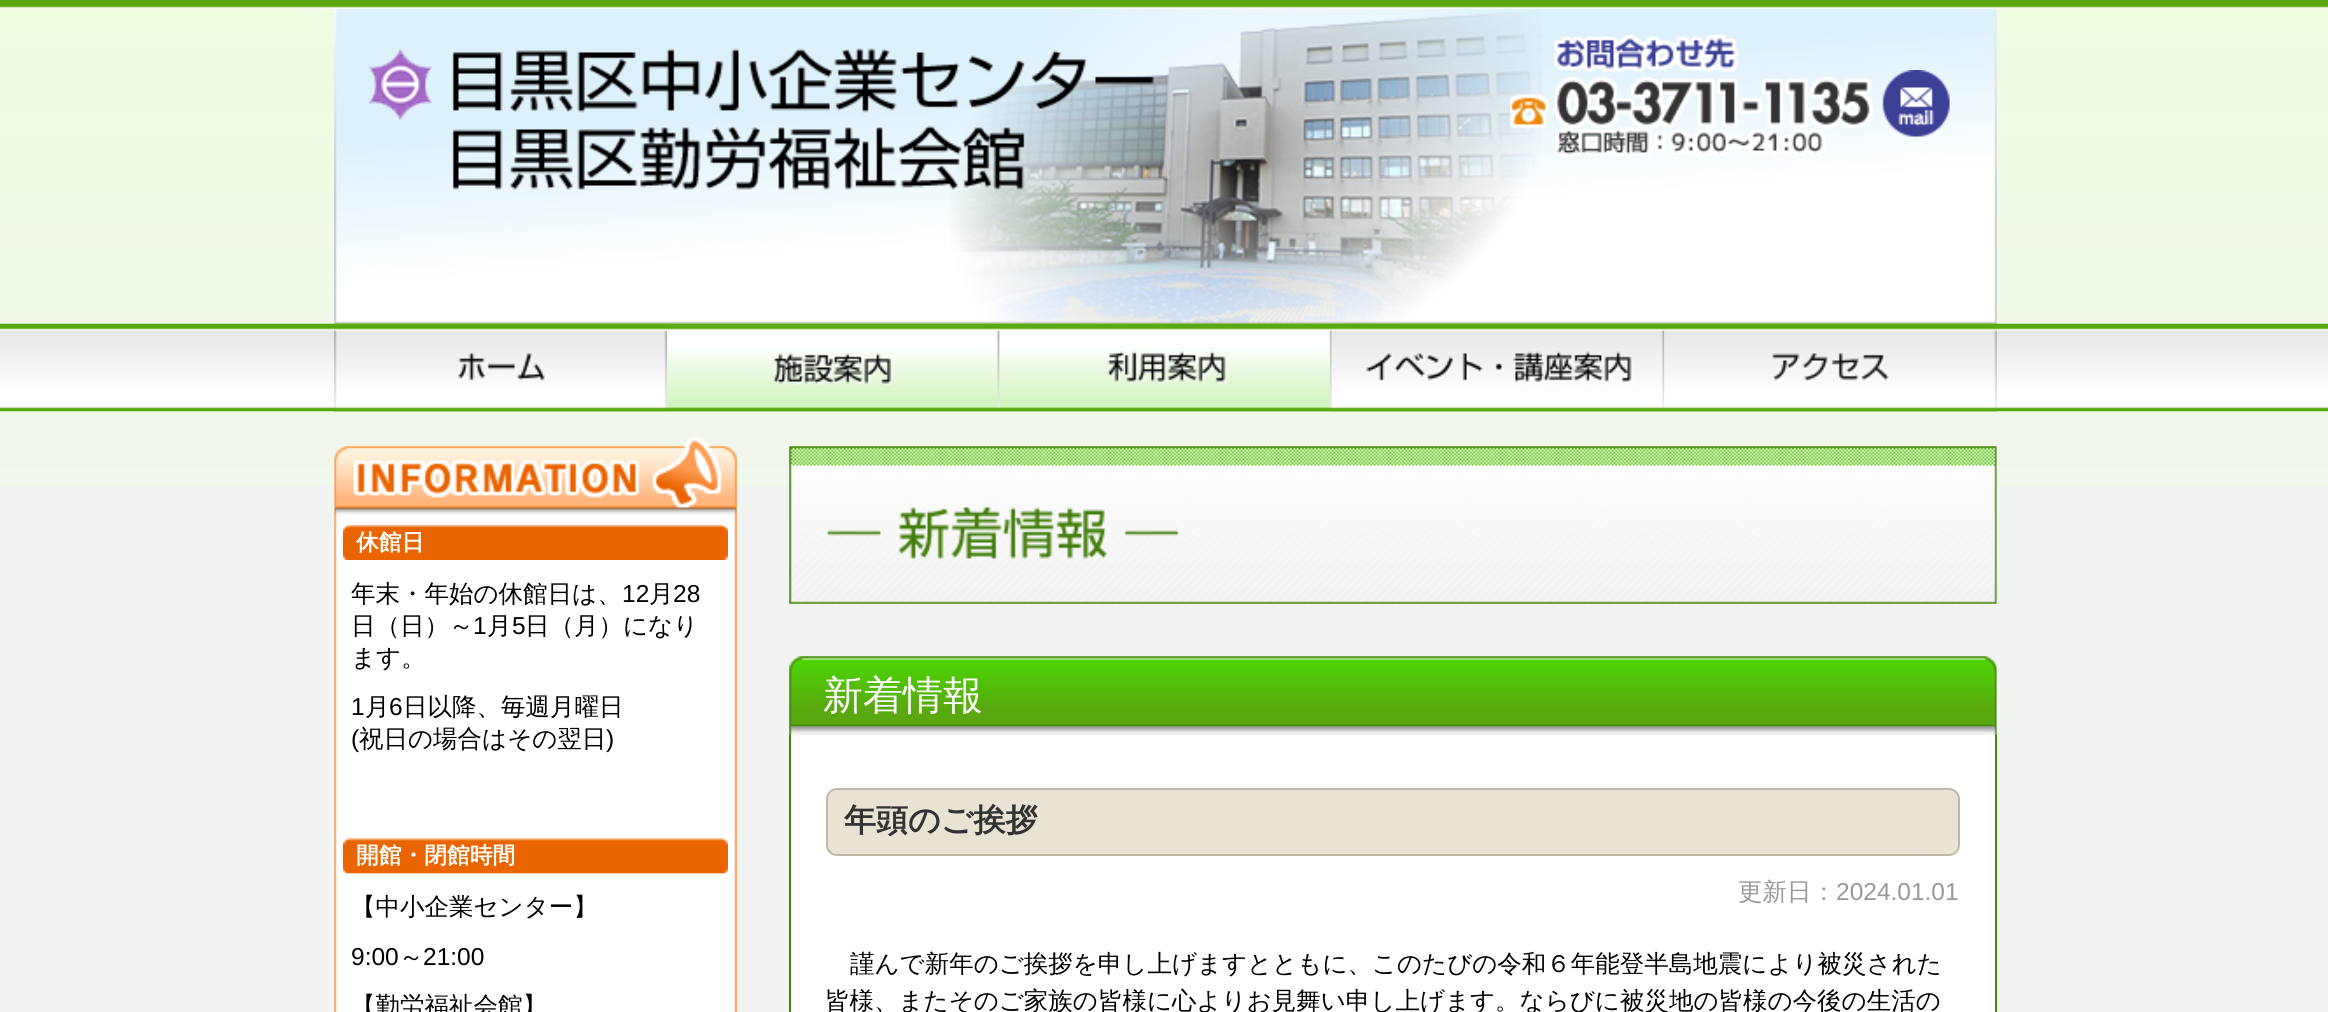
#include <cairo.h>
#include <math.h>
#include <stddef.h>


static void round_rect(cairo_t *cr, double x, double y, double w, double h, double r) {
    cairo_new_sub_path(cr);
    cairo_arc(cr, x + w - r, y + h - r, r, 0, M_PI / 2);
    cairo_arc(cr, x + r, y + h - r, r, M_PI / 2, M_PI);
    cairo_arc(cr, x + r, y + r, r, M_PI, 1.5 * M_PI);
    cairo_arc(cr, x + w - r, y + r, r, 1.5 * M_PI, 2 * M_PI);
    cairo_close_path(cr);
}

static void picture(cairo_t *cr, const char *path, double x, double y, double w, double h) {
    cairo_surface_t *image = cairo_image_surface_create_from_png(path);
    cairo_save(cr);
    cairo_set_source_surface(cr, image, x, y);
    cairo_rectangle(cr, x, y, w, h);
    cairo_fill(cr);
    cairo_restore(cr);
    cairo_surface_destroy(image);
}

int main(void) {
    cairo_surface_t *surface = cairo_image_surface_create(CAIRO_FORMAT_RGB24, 2328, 1012);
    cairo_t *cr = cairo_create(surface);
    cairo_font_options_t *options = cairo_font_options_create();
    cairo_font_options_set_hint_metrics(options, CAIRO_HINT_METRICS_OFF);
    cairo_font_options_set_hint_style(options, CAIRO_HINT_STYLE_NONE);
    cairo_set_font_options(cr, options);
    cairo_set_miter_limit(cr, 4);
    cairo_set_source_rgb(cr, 0.949, 0.957, 0.945);
    cairo_paint(cr);
    picture(cr, "img1.png", 0, 0, 2328, 486);
    picture(cr, "img2.png", 334, 8, 1663, 316);
    picture(cr, "img3.png", 369, 48, 785, 142);
    picture(cr, "img4.png", 1510, 35, 363, 123);
    picture(cr, "img5.png", 1882, 70, 68, 67);
    picture(cr, "img6.png", 0, 323, 2328, 89);
    picture(cr, "img7.png", 334, 323, 1663, 89);
    picture(cr, "img8.png", 334, 323, 333, 89);
    picture(cr, "img9.png", 1331, 323, 334, 89);
    picture(cr, "img10.png", 1664, 323, 333, 89);
    picture(cr, "img11.png", 334, 437, 403, 88);
    picture(cr, "img12.png", 334, 525, 403, 487);
    picture(cr, "img13.png", 343, 525, 385, 35);
    cairo_select_font_face(cr, "WenQuanYi Zen Hei", CAIRO_FONT_SLANT_NORMAL, CAIRO_FONT_WEIGHT_BOLD);
    cairo_set_font_size(cr, 22.75);
    cairo_set_source_rgb(cr, 1, 1, 1);
    cairo_move_to(cr, 356, 550);
    cairo_show_text(cr, "休館日");
    cairo_select_font_face(cr, "WenQuanYi Zen Hei Medium", CAIRO_FONT_SLANT_NORMAL, CAIRO_FONT_WEIGHT_NORMAL);
    cairo_set_font_size(cr, 24.5);
    cairo_set_source_rgb(cr, 0, 0, 0);
    cairo_move_to(cr, 351, 602);
    cairo_show_text(cr, "年末・年始の休館日は、");
    cairo_select_font_face(cr, "Liberation Sans", CAIRO_FONT_SLANT_NORMAL, CAIRO_FONT_WEIGHT_NORMAL);
    cairo_move_to(cr, 622, 602);
    cairo_show_text(cr, "12");
    cairo_select_font_face(cr, "WenQuanYi Zen Hei Medium", CAIRO_FONT_SLANT_NORMAL, CAIRO_FONT_WEIGHT_NORMAL);
    cairo_move_to(cr, 649, 602);
    cairo_show_text(cr, "月");
    cairo_select_font_face(cr, "Liberation Sans", CAIRO_FONT_SLANT_NORMAL, CAIRO_FONT_WEIGHT_NORMAL);
    cairo_move_to(cr, 673, 602);
    cairo_show_text(cr, "28");
    cairo_select_font_face(cr, "WenQuanYi Zen Hei Medium", CAIRO_FONT_SLANT_NORMAL, CAIRO_FONT_WEIGHT_NORMAL);
    cairo_move_to(cr, 351, 634);
    cairo_show_text(cr, "日（日）～");
    cairo_select_font_face(cr, "Liberation Sans", CAIRO_FONT_SLANT_NORMAL, CAIRO_FONT_WEIGHT_NORMAL);
    cairo_move_to(cr, 473, 634);
    cairo_show_text(cr, "1");
    cairo_select_font_face(cr, "WenQuanYi Zen Hei Medium", CAIRO_FONT_SLANT_NORMAL, CAIRO_FONT_WEIGHT_NORMAL);
    cairo_move_to(cr, 487, 634);
    cairo_show_text(cr, "月");
    cairo_select_font_face(cr, "Liberation Sans", CAIRO_FONT_SLANT_NORMAL, CAIRO_FONT_WEIGHT_NORMAL);
    cairo_move_to(cr, 512, 634);
    cairo_show_text(cr, "5");
    cairo_select_font_face(cr, "WenQuanYi Zen Hei Medium", CAIRO_FONT_SLANT_NORMAL, CAIRO_FONT_WEIGHT_NORMAL);
    cairo_move_to(cr, 525, 634);
    cairo_show_text(cr, "日（月）になり");
    cairo_move_to(cr, 351, 666);
    cairo_show_text(cr, "ます。");
    cairo_select_font_face(cr, "Liberation Sans", CAIRO_FONT_SLANT_NORMAL, CAIRO_FONT_WEIGHT_NORMAL);
    cairo_move_to(cr, 351, 715);
    cairo_show_text(cr, "1");
    cairo_select_font_face(cr, "WenQuanYi Zen Hei Medium", CAIRO_FONT_SLANT_NORMAL, CAIRO_FONT_WEIGHT_NORMAL);
    cairo_move_to(cr, 365, 715);
    cairo_show_text(cr, "月");
    cairo_select_font_face(cr, "Liberation Sans", CAIRO_FONT_SLANT_NORMAL, CAIRO_FONT_WEIGHT_NORMAL);
    cairo_move_to(cr, 389, 715);
    cairo_show_text(cr, "6");
    cairo_select_font_face(cr, "WenQuanYi Zen Hei Medium", CAIRO_FONT_SLANT_NORMAL, CAIRO_FONT_WEIGHT_NORMAL);
    cairo_move_to(cr, 403, 715);
    cairo_show_text(cr, "日以降、毎週月曜日");
    cairo_select_font_face(cr, "Liberation Sans", CAIRO_FONT_SLANT_NORMAL, CAIRO_FONT_WEIGHT_NORMAL);
    cairo_move_to(cr, 351, 747);
    cairo_show_text(cr, "(");
    cairo_select_font_face(cr, "WenQuanYi Zen Hei Medium", CAIRO_FONT_SLANT_NORMAL, CAIRO_FONT_WEIGHT_NORMAL);
    cairo_move_to(cr, 359, 747);
    cairo_show_text(cr, "祝日の場合はその翌日");
    cairo_select_font_face(cr, "Liberation Sans", CAIRO_FONT_SLANT_NORMAL, CAIRO_FONT_WEIGHT_NORMAL);
    cairo_move_to(cr, 606, 747);
    cairo_show_text(cr, ")");
    picture(cr, "img14.png", 343, 838, 385, 36);
    cairo_select_font_face(cr, "WenQuanYi Zen Hei", CAIRO_FONT_SLANT_NORMAL, CAIRO_FONT_WEIGHT_BOLD);
    cairo_set_font_size(cr, 22.75);
    cairo_set_source_rgb(cr, 1, 1, 1);
    cairo_move_to(cr, 356, 863);
    cairo_show_text(cr, "開館・閉館時間");
    cairo_select_font_face(cr, "WenQuanYi Zen Hei Medium", CAIRO_FONT_SLANT_NORMAL, CAIRO_FONT_WEIGHT_NORMAL);
    cairo_set_font_size(cr, 24.5);
    cairo_set_source_rgb(cr, 0, 0, 0);
    cairo_move_to(cr, 351, 915);
    cairo_show_text(cr, "【中小企業センター】");
    cairo_select_font_face(cr, "Liberation Sans", CAIRO_FONT_SLANT_NORMAL, CAIRO_FONT_WEIGHT_NORMAL);
    cairo_move_to(cr, 351, 965);
    cairo_show_text(cr, "9:00");
    cairo_select_font_face(cr, "WenQuanYi Zen Hei Medium", CAIRO_FONT_SLANT_NORMAL, CAIRO_FONT_WEIGHT_NORMAL);
    cairo_move_to(cr, 399, 965);
    cairo_show_text(cr, "～");
    cairo_select_font_face(cr, "Liberation Sans", CAIRO_FONT_SLANT_NORMAL, CAIRO_FONT_WEIGHT_NORMAL);
    cairo_move_to(cr, 423, 965);
    cairo_show_text(cr, "21:00");
    cairo_select_font_face(cr, "WenQuanYi Zen Hei Medium", CAIRO_FONT_SLANT_NORMAL, CAIRO_FONT_WEIGHT_NORMAL);
    cairo_move_to(cr, 351, 1014);
    cairo_show_text(cr, "【勤労福祉会館】");
    picture(cr, "img15.png", 789, 446, 1208, 158);
    picture(cr, "img16.png", 789, 656, 1208, 79);
    cairo_set_font_size(cr, 40);
    cairo_set_source_rgb(cr, 1, 1, 1);
    cairo_move_to(cr, 823, 709);
    cairo_show_text(cr, "新着情報");
    cairo_rectangle(cr, 791, 735, 1204, 277);
    cairo_fill(cr);
    cairo_set_source_rgb(cr, 0.271, 0.529, 0.039);
    cairo_rectangle(cr, 1995, 735, 2, 277);
    cairo_fill(cr);
    cairo_rectangle(cr, 789, 735, 2, 277);
    cairo_fill(cr);
    cairo_set_source_rgb(cr, 0.91, 0.89, 0.827);
    round_rect(cr, 827, 789, 1132, 66, 10);
    cairo_fill_preserve(cr);
    cairo_set_source_rgb(cr, 0.745, 0.722, 0.647);
    cairo_stroke(cr);
    cairo_select_font_face(cr, "WenQuanYi Zen Hei", CAIRO_FONT_SLANT_NORMAL, CAIRO_FONT_WEIGHT_BOLD);
    cairo_set_font_size(cr, 32);
    cairo_set_source_rgb(cr, 0.2, 0.2, 0.2);
    cairo_move_to(cr, 844, 831);
    cairo_show_text(cr, "年頭のご挨拶");
    cairo_select_font_face(cr, "WenQuanYi Zen Hei Medium", CAIRO_FONT_SLANT_NORMAL, CAIRO_FONT_WEIGHT_NORMAL);
    cairo_set_font_size(cr, 24.5);
    cairo_set_source_rgb(cr, 0.6, 0.6, 0.6);
    cairo_move_to(cr, 1738, 900);
    cairo_show_text(cr, "更新日：");
    cairo_select_font_face(cr, "Liberation Sans", CAIRO_FONT_SLANT_NORMAL, CAIRO_FONT_WEIGHT_NORMAL);
    cairo_move_to(cr, 1836, 900);
    cairo_show_text(cr, "2024.01.01");
    cairo_select_font_face(cr, "WenQuanYi Zen Hei Medium", CAIRO_FONT_SLANT_NORMAL, CAIRO_FONT_WEIGHT_NORMAL);
    cairo_set_source_rgb(cr, 0, 0, 0);
    cairo_move_to(cr, 850, 972);
    cairo_show_text(cr, "謹んで新年のご挨拶を申し上げますとともに、このたびの令和６年能登半島地震により被災された");
    cairo_move_to(cr, 825, 1009);
    cairo_show_text(cr, "皆様、またそのご家族の皆様に心よりお見舞い申し上げます。ならびに被災地の皆様の今後の生活の");
    cairo_surface_write_to_png(surface, "page.png");
    cairo_font_options_destroy(options);
    cairo_destroy(cr);
    cairo_surface_destroy(surface);
    return 0;
}
